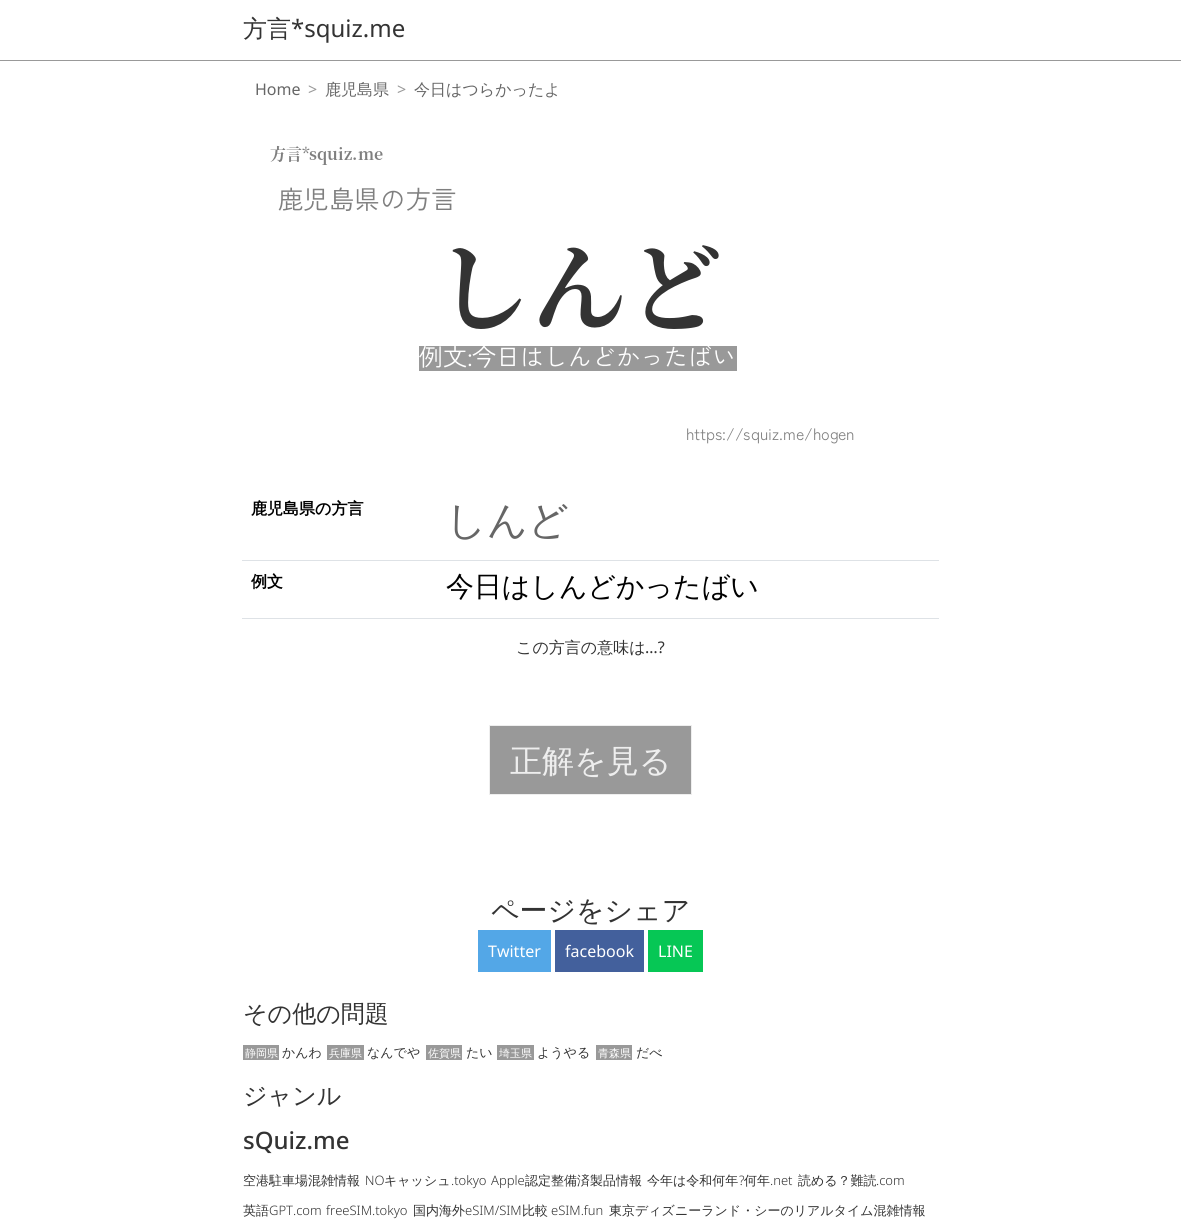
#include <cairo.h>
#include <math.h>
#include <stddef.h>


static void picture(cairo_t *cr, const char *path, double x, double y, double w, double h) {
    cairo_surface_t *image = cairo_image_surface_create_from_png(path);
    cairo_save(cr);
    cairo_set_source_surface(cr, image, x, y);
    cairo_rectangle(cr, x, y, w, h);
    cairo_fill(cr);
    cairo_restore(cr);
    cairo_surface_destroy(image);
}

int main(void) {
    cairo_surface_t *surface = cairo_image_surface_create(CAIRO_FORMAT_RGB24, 1181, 1222);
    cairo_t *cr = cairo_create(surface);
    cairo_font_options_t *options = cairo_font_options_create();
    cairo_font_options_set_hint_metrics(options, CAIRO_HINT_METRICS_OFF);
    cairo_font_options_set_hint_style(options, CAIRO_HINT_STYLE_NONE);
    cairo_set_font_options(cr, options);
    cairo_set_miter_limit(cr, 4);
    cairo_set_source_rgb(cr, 1, 1, 1);
    cairo_paint(cr);
    cairo_set_source_rgb(cr, 0.6, 0.6, 0.6);
    cairo_rectangle(cr, 0, 60, 1181, 1);
    cairo_fill(cr);
    cairo_select_font_face(cr, "WenQuanYi Zen Hei Medium", CAIRO_FONT_SLANT_NORMAL, CAIRO_FONT_WEIGHT_NORMAL);
    cairo_set_font_size(cr, 24);
    cairo_set_source_rgb(cr, 0.2, 0.2, 0.2);
    cairo_move_to(cr, 243, 37);
    cairo_show_text(cr, "方言");
    cairo_select_font_face(cr, "Noto Sans", CAIRO_FONT_SLANT_NORMAL, CAIRO_FONT_WEIGHT_NORMAL);
    cairo_move_to(cr, 291, 37);
    cairo_show_text(cr, "*squiz.me");
    cairo_set_font_size(cr, 16);
    cairo_set_source_rgb(cr, 0.4, 0.4, 0.4);
    cairo_move_to(cr, 255, 95);
    cairo_show_text(cr, "Home");
    cairo_set_source_rgb(cr, 0.6, 0.6, 0.6);
    cairo_move_to(cr, 308, 95);
    cairo_show_text(cr, ">");
    cairo_select_font_face(cr, "WenQuanYi Zen Hei Medium", CAIRO_FONT_SLANT_NORMAL, CAIRO_FONT_WEIGHT_NORMAL);
    cairo_set_source_rgb(cr, 0.4, 0.4, 0.4);
    cairo_move_to(cr, 325, 95);
    cairo_show_text(cr, "鹿児島県");
    cairo_select_font_face(cr, "Noto Sans", CAIRO_FONT_SLANT_NORMAL, CAIRO_FONT_WEIGHT_NORMAL);
    cairo_set_source_rgb(cr, 0.6, 0.6, 0.6);
    cairo_move_to(cr, 397, 95);
    cairo_show_text(cr, ">");
    cairo_select_font_face(cr, "WenQuanYi Zen Hei Medium", CAIRO_FONT_SLANT_NORMAL, CAIRO_FONT_WEIGHT_NORMAL);
    cairo_set_source_rgb(cr, 0.4, 0.4, 0.4);
    cairo_move_to(cr, 414, 95);
    cairo_show_text(cr, "今日はつらかったよ");
    picture(cr, "img1.png", 270, 145, 584, 299);
    cairo_select_font_face(cr, "WenQuanYi Zen Hei", CAIRO_FONT_SLANT_NORMAL, CAIRO_FONT_WEIGHT_BOLD);
    cairo_set_source_rgb(cr, 0, 0, 0);
    cairo_move_to(cr, 251, 514);
    cairo_show_text(cr, "鹿児島県の方言");
    cairo_set_source_rgb(cr, 0.871, 0.886, 0.902);
    cairo_rectangle(cr, 242, 560, 697, 1);
    cairo_fill(cr);
    cairo_select_font_face(cr, "WenQuanYi Zen Hei Medium", CAIRO_FONT_SLANT_NORMAL, CAIRO_FONT_WEIGHT_NORMAL);
    cairo_set_font_size(cr, 40);
    cairo_set_source_rgb(cr, 0.4, 0.4, 0.4);
    cairo_move_to(cr, 446, 534);
    cairo_show_text(cr, "しんど");
    cairo_select_font_face(cr, "WenQuanYi Zen Hei", CAIRO_FONT_SLANT_NORMAL, CAIRO_FONT_WEIGHT_BOLD);
    cairo_set_font_size(cr, 16);
    cairo_set_source_rgb(cr, 0, 0, 0);
    cairo_move_to(cr, 251, 587);
    cairo_show_text(cr, "例文");
    cairo_set_source_rgb(cr, 0.871, 0.886, 0.902);
    cairo_rectangle(cr, 242, 618, 697, 1);
    cairo_fill(cr);
    cairo_select_font_face(cr, "WenQuanYi Zen Hei Medium", CAIRO_FONT_SLANT_NORMAL, CAIRO_FONT_WEIGHT_NORMAL);
    cairo_set_font_size(cr, 27.9);
    cairo_set_source_rgb(cr, 0, 0, 0);
    cairo_move_to(cr, 446, 596);
    cairo_show_text(cr, "今日はしんどかったばい");
    cairo_set_font_size(cr, 16);
    cairo_set_source_rgb(cr, 0.2, 0.2, 0.2);
    cairo_move_to(cr, 516, 653);
    cairo_show_text(cr, "この方言の意味は");
    cairo_select_font_face(cr, "Noto Sans", CAIRO_FONT_SLANT_NORMAL, CAIRO_FONT_WEIGHT_NORMAL);
    cairo_move_to(cr, 645, 653);
    cairo_show_text(cr, "…?");
    cairo_set_source_rgb(cr, 0.6, 0.6, 0.6);
    cairo_rectangle(cr, 489.5, 725.5, 202, 69);
    cairo_fill_preserve(cr);
    cairo_set_source_rgb(cr, 0.933, 0.933, 0.933);
    cairo_set_line_width(cr, 1);
    cairo_stroke(cr);
    cairo_select_font_face(cr, "WenQuanYi Zen Hei Medium", CAIRO_FONT_SLANT_NORMAL, CAIRO_FONT_WEIGHT_NORMAL);
    cairo_set_font_size(cr, 32);
    cairo_move_to(cr, 510, 772);
    cairo_show_text(cr, "正解を見る");
    cairo_set_font_size(cr, 27.9);
    cairo_set_source_rgb(cr, 0.2, 0.2, 0.2);
    cairo_move_to(cr, 491, 920);
    cairo_show_text(cr, "ページをシェア");
    cairo_set_source_rgb(cr, 0.325, 0.655, 0.906);
    cairo_rectangle(cr, 478, 930, 73, 42);
    cairo_fill(cr);
    cairo_select_font_face(cr, "Noto Sans", CAIRO_FONT_SLANT_NORMAL, CAIRO_FONT_WEIGHT_NORMAL);
    cairo_set_font_size(cr, 16);
    cairo_set_source_rgb(cr, 1, 1, 1);
    cairo_move_to(cr, 488, 957);
    cairo_show_text(cr, "Twitter");
    cairo_set_source_rgb(cr, 0.263, 0.376, 0.612);
    cairo_rectangle(cr, 555, 930, 89, 42);
    cairo_fill(cr);
    cairo_set_source_rgb(cr, 1, 1, 1);
    cairo_move_to(cr, 565, 957);
    cairo_show_text(cr, "facebook");
    cairo_set_source_rgb(cr, 0.024, 0.78, 0.333);
    cairo_rectangle(cr, 648, 930, 55, 42);
    cairo_fill(cr);
    cairo_set_source_rgb(cr, 1, 1, 1);
    cairo_move_to(cr, 658, 957);
    cairo_show_text(cr, "LINE");
    cairo_select_font_face(cr, "WenQuanYi Zen Hei Medium", CAIRO_FONT_SLANT_NORMAL, CAIRO_FONT_WEIGHT_NORMAL);
    cairo_set_font_size(cr, 24);
    cairo_set_source_rgb(cr, 0.2, 0.2, 0.2);
    cairo_move_to(cr, 243, 1022);
    cairo_show_text(cr, "その他の問題");
    cairo_set_source_rgb(cr, 0.6, 0.6, 0.6);
    cairo_rectangle(cr, 243, 1045, 36, 15);
    cairo_fill(cr);
    cairo_set_font_size(cr, 11);
    cairo_set_source_rgb(cr, 1, 1, 1);
    cairo_move_to(cr, 245, 1057);
    cairo_show_text(cr, "静岡県");
    cairo_set_font_size(cr, 13);
    cairo_set_source_rgb(cr, 0.2, 0.2, 0.2);
    cairo_move_to(cr, 282, 1057);
    cairo_show_text(cr, "かんわ");
    cairo_set_source_rgb(cr, 0.6, 0.6, 0.6);
    cairo_rectangle(cr, 327, 1045, 37, 15);
    cairo_fill(cr);
    cairo_set_font_size(cr, 11);
    cairo_set_source_rgb(cr, 1, 1, 1);
    cairo_move_to(cr, 329, 1057);
    cairo_show_text(cr, "兵庫県");
    cairo_set_font_size(cr, 13);
    cairo_set_source_rgb(cr, 0.2, 0.2, 0.2);
    cairo_move_to(cr, 367, 1057);
    cairo_show_text(cr, "なんでや");
    cairo_set_source_rgb(cr, 0.6, 0.6, 0.6);
    cairo_rectangle(cr, 426, 1045, 36, 15);
    cairo_fill(cr);
    cairo_set_font_size(cr, 11);
    cairo_set_source_rgb(cr, 1, 1, 1);
    cairo_move_to(cr, 428, 1057);
    cairo_show_text(cr, "佐賀県");
    cairo_set_font_size(cr, 13);
    cairo_set_source_rgb(cr, 0.2, 0.2, 0.2);
    cairo_move_to(cr, 466, 1057);
    cairo_show_text(cr, "たい");
    cairo_set_source_rgb(cr, 0.6, 0.6, 0.6);
    cairo_rectangle(cr, 497, 1045, 37, 15);
    cairo_fill(cr);
    cairo_set_font_size(cr, 11);
    cairo_set_source_rgb(cr, 1, 1, 1);
    cairo_move_to(cr, 499, 1057);
    cairo_show_text(cr, "埼玉県");
    cairo_set_font_size(cr, 13);
    cairo_set_source_rgb(cr, 0.2, 0.2, 0.2);
    cairo_move_to(cr, 537, 1057);
    cairo_show_text(cr, "ようやる");
    cairo_set_source_rgb(cr, 0.6, 0.6, 0.6);
    cairo_rectangle(cr, 596, 1045, 36, 15);
    cairo_fill(cr);
    cairo_set_font_size(cr, 11);
    cairo_set_source_rgb(cr, 1, 1, 1);
    cairo_move_to(cr, 598, 1057);
    cairo_show_text(cr, "青森県");
    cairo_set_font_size(cr, 13);
    cairo_set_source_rgb(cr, 0.2, 0.2, 0.2);
    cairo_move_to(cr, 636, 1057);
    cairo_show_text(cr, "だべ");
    cairo_set_font_size(cr, 24);
    cairo_move_to(cr, 243, 1104);
    cairo_show_text(cr, "ジャンル");
    cairo_select_font_face(cr, "Noto Sans Medium", CAIRO_FONT_SLANT_NORMAL, CAIRO_FONT_WEIGHT_NORMAL);
    cairo_move_to(cr, 243, 1149);
    cairo_show_text(cr, "sQuiz.me");
    cairo_select_font_face(cr, "WenQuanYi Zen Hei Medium", CAIRO_FONT_SLANT_NORMAL, CAIRO_FONT_WEIGHT_NORMAL);
    cairo_set_font_size(cr, 13);
    cairo_move_to(cr, 243, 1185);
    cairo_show_text(cr, "空港駐車場混雑情報");
    cairo_select_font_face(cr, "Noto Sans Light", CAIRO_FONT_SLANT_NORMAL, CAIRO_FONT_WEIGHT_NORMAL);
    cairo_move_to(cr, 365, 1185);
    cairo_show_text(cr, "NO");
    cairo_select_font_face(cr, "WenQuanYi Zen Hei Medium", CAIRO_FONT_SLANT_NORMAL, CAIRO_FONT_WEIGHT_NORMAL);
    cairo_move_to(cr, 384, 1185);
    cairo_show_text(cr, "キャッシュ");
    cairo_select_font_face(cr, "Noto Sans Light", CAIRO_FONT_SLANT_NORMAL, CAIRO_FONT_WEIGHT_NORMAL);
    cairo_move_to(cr, 451, 1185);
    cairo_show_text(cr, ".tokyo");
    cairo_move_to(cr, 491, 1185);
    cairo_show_text(cr, "Apple");
    cairo_select_font_face(cr, "WenQuanYi Zen Hei Medium", CAIRO_FONT_SLANT_NORMAL, CAIRO_FONT_WEIGHT_NORMAL);
    cairo_move_to(cr, 525, 1185);
    cairo_show_text(cr, "認定整備済製品情報");
    cairo_move_to(cr, 647, 1185);
    cairo_show_text(cr, "今年は令和何年");
    cairo_select_font_face(cr, "Noto Sans Light", CAIRO_FONT_SLANT_NORMAL, CAIRO_FONT_WEIGHT_NORMAL);
    cairo_move_to(cr, 739, 1185);
    cairo_show_text(cr, "?");
    cairo_select_font_face(cr, "WenQuanYi Zen Hei Medium", CAIRO_FONT_SLANT_NORMAL, CAIRO_FONT_WEIGHT_NORMAL);
    cairo_move_to(cr, 744, 1185);
    cairo_show_text(cr, "何年");
    cairo_select_font_face(cr, "Noto Sans Light", CAIRO_FONT_SLANT_NORMAL, CAIRO_FONT_WEIGHT_NORMAL);
    cairo_move_to(cr, 770, 1185);
    cairo_show_text(cr, ".net");
    cairo_select_font_face(cr, "WenQuanYi Zen Hei Medium", CAIRO_FONT_SLANT_NORMAL, CAIRO_FONT_WEIGHT_NORMAL);
    cairo_move_to(cr, 798, 1185);
    cairo_show_text(cr, "読める？難読");
    cairo_select_font_face(cr, "Noto Sans Light", CAIRO_FONT_SLANT_NORMAL, CAIRO_FONT_WEIGHT_NORMAL);
    cairo_move_to(cr, 876, 1185);
    cairo_show_text(cr, ".com");
    cairo_select_font_face(cr, "WenQuanYi Zen Hei Medium", CAIRO_FONT_SLANT_NORMAL, CAIRO_FONT_WEIGHT_NORMAL);
    cairo_move_to(cr, 243, 1215);
    cairo_show_text(cr, "英語");
    cairo_select_font_face(cr, "Noto Sans Light", CAIRO_FONT_SLANT_NORMAL, CAIRO_FONT_WEIGHT_NORMAL);
    cairo_move_to(cr, 269, 1215);
    cairo_show_text(cr, "GPT.com");
    cairo_move_to(cr, 326, 1215);
    cairo_show_text(cr, "freeSIM.tokyo");
    cairo_select_font_face(cr, "WenQuanYi Zen Hei Medium", CAIRO_FONT_SLANT_NORMAL, CAIRO_FONT_WEIGHT_NORMAL);
    cairo_move_to(cr, 413, 1215);
    cairo_show_text(cr, "国内海外");
    cairo_select_font_face(cr, "Noto Sans Light", CAIRO_FONT_SLANT_NORMAL, CAIRO_FONT_WEIGHT_NORMAL);
    cairo_move_to(cr, 465, 1215);
    cairo_show_text(cr, "eSIM/SIM");
    cairo_select_font_face(cr, "WenQuanYi Zen Hei Medium", CAIRO_FONT_SLANT_NORMAL, CAIRO_FONT_WEIGHT_NORMAL);
    cairo_move_to(cr, 522, 1215);
    cairo_show_text(cr, "比較");
    cairo_select_font_face(cr, "Noto Sans Light", CAIRO_FONT_SLANT_NORMAL, CAIRO_FONT_WEIGHT_NORMAL);
    cairo_move_to(cr, 551, 1215);
    cairo_show_text(cr, "eSIM.fun");
    cairo_select_font_face(cr, "WenQuanYi Zen Hei Medium", CAIRO_FONT_SLANT_NORMAL, CAIRO_FONT_WEIGHT_NORMAL);
    cairo_move_to(cr, 609, 1215);
    cairo_show_text(cr, "東京ディズニーランド・シーのリアルタイム混雑情報");
    cairo_surface_write_to_png(surface, "page.png");
    cairo_font_options_destroy(options);
    cairo_destroy(cr);
    cairo_surface_destroy(surface);
    return 0;
}
